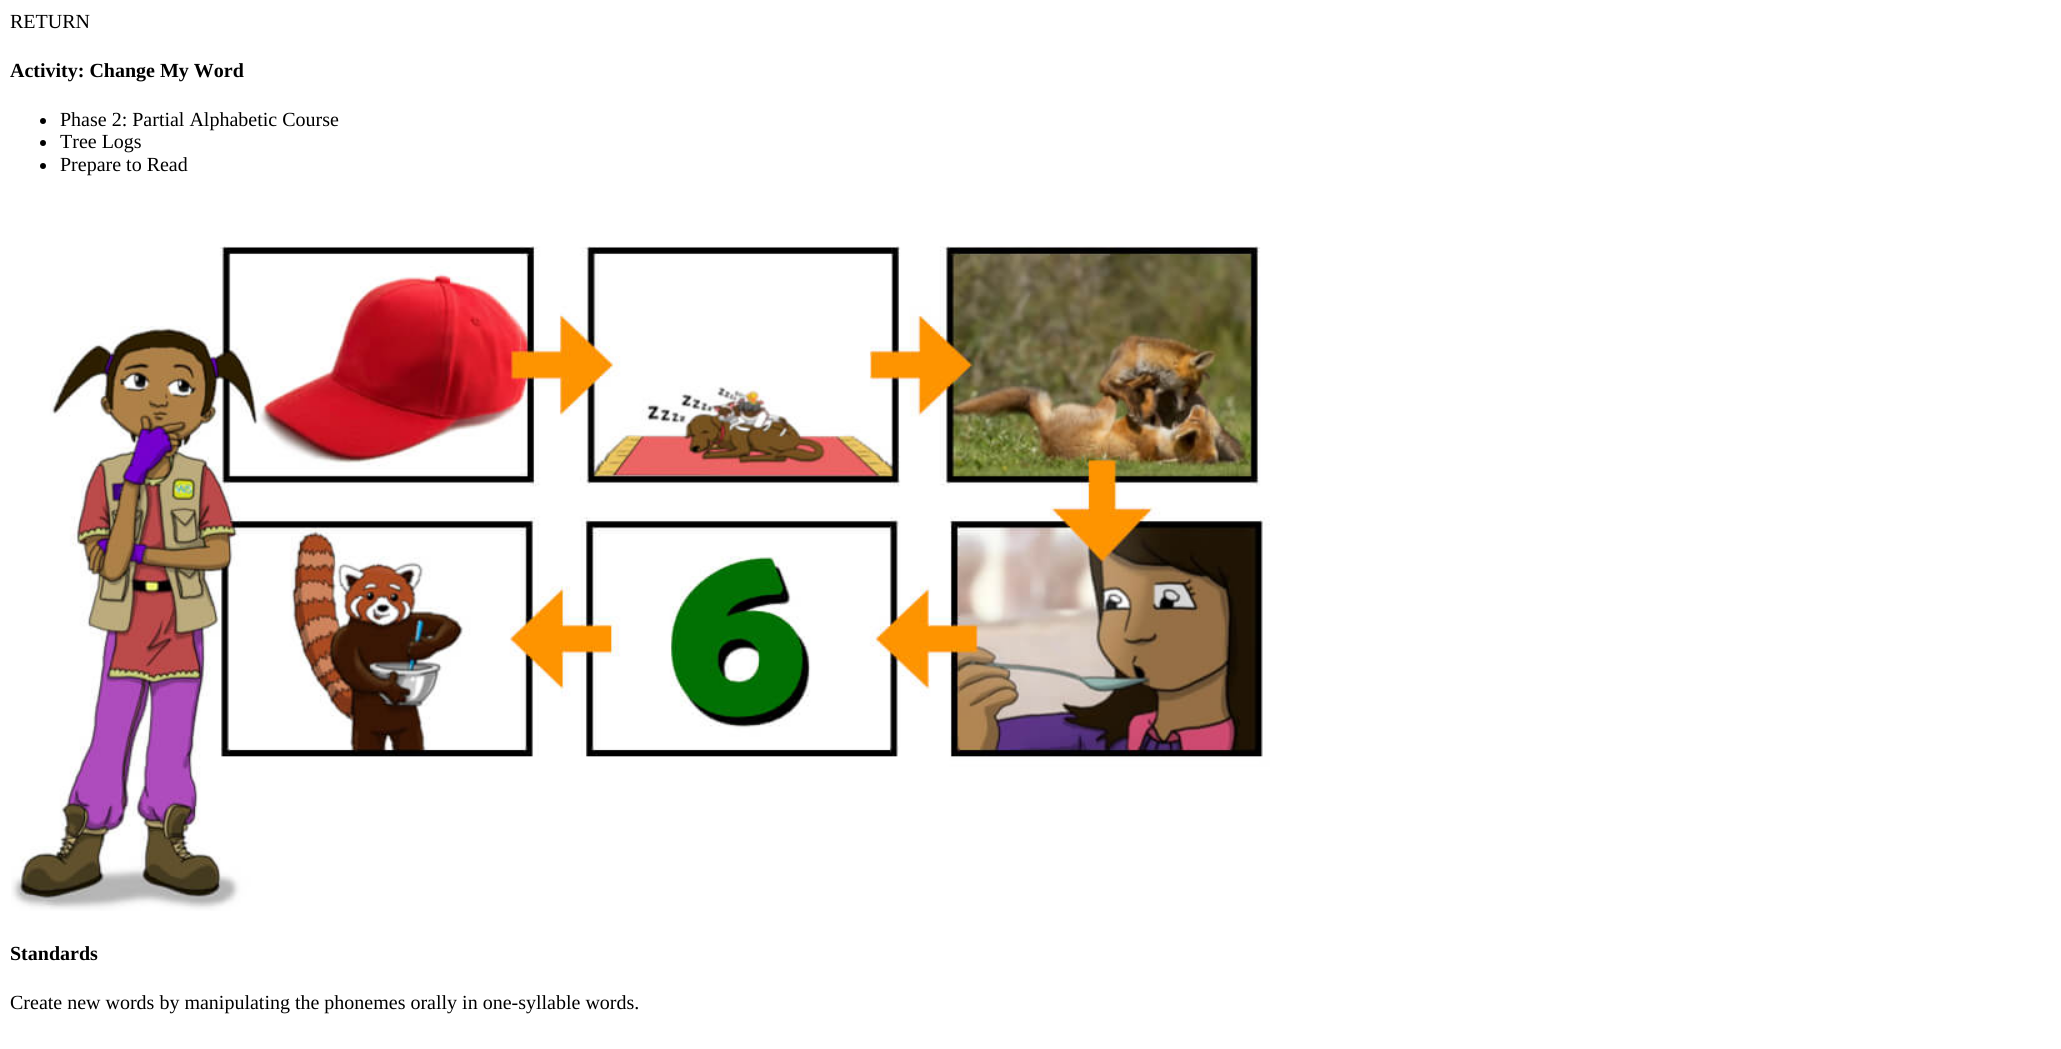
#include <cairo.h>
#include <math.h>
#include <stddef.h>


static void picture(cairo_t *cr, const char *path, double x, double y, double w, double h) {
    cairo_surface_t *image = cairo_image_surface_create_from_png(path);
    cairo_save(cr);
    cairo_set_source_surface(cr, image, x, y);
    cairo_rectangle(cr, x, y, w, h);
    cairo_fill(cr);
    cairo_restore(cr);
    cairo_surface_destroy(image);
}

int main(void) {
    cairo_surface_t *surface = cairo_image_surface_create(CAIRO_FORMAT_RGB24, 2061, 1049);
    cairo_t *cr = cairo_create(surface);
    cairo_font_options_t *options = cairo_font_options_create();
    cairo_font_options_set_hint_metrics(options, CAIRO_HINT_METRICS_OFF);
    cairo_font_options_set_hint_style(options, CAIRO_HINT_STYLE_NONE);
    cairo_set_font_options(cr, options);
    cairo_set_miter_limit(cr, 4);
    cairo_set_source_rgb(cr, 1, 1, 1);
    cairo_paint(cr);
    cairo_select_font_face(cr, "Liberation Serif", CAIRO_FONT_SLANT_NORMAL, CAIRO_FONT_WEIGHT_NORMAL);
    cairo_set_font_size(cr, 20);
    cairo_set_source_rgb(cr, 0, 0, 0);
    cairo_move_to(cr, 10, 28);
    cairo_show_text(cr, "RETURN");
    cairo_select_font_face(cr, "Liberation Serif", CAIRO_FONT_SLANT_NORMAL, CAIRO_FONT_WEIGHT_BOLD);
    cairo_move_to(cr, 10, 77);
    cairo_show_text(cr, "Activity: Change My Word");
    cairo_new_path(cr);
    cairo_arc(cr, 43, 121, 3, 0, 2 * M_PI);
    cairo_fill(cr);
    cairo_select_font_face(cr, "Liberation Serif", CAIRO_FONT_SLANT_NORMAL, CAIRO_FONT_WEIGHT_NORMAL);
    cairo_move_to(cr, 60, 126);
    cairo_show_text(cr, "Phase 2: Partial Alphabetic Course");
    cairo_new_path(cr);
    cairo_arc(cr, 43, 143, 3, 0, 2 * M_PI);
    cairo_fill(cr);
    cairo_move_to(cr, 60, 148);
    cairo_show_text(cr, "Tree Logs");
    cairo_new_path(cr);
    cairo_arc(cr, 43, 166, 3, 0, 2 * M_PI);
    cairo_fill(cr);
    cairo_move_to(cr, 60, 171);
    cairo_show_text(cr, "Prepare to Read");
    picture(cr, "img1.png", 11, 246, 1259, 665);
    cairo_select_font_face(cr, "Liberation Serif", CAIRO_FONT_SLANT_NORMAL, CAIRO_FONT_WEIGHT_BOLD);
    cairo_move_to(cr, 10, 960);
    cairo_show_text(cr, "Standards");
    cairo_select_font_face(cr, "Liberation Serif", CAIRO_FONT_SLANT_NORMAL, CAIRO_FONT_WEIGHT_NORMAL);
    cairo_move_to(cr, 10, 1009);
    cairo_show_text(cr, "Create new words by manipulating the phonemes orally in one-syllable words.");
    cairo_surface_write_to_png(surface, "page.png");
    cairo_font_options_destroy(options);
    cairo_destroy(cr);
    cairo_surface_destroy(surface);
    return 0;
}
